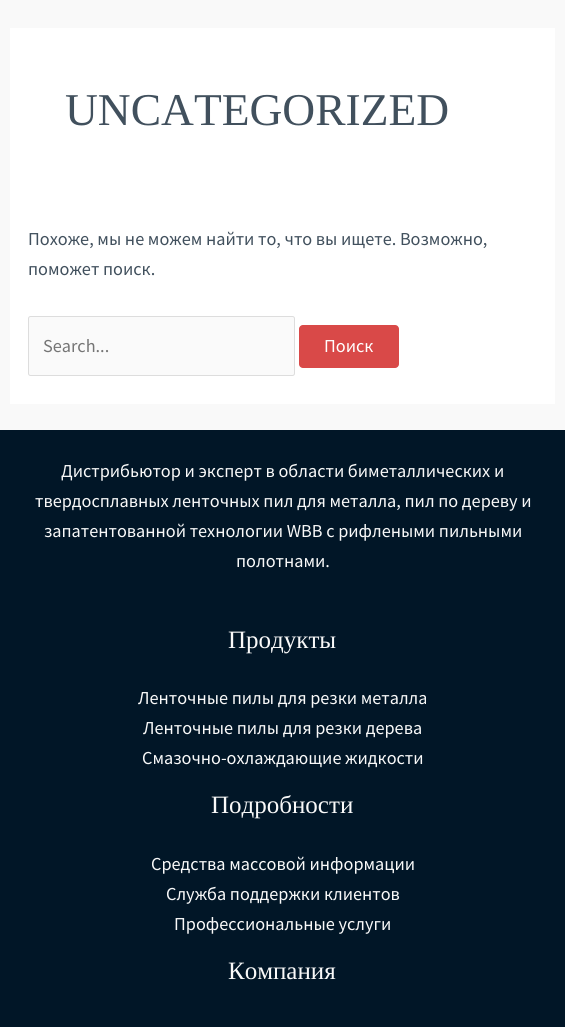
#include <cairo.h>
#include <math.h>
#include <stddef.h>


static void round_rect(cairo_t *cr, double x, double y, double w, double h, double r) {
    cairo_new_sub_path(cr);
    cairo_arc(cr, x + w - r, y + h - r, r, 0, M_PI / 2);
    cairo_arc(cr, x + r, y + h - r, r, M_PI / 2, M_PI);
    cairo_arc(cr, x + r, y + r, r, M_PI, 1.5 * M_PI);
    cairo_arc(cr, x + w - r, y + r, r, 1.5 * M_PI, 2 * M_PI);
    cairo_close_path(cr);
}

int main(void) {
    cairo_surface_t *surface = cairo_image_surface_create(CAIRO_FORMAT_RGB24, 565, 1027);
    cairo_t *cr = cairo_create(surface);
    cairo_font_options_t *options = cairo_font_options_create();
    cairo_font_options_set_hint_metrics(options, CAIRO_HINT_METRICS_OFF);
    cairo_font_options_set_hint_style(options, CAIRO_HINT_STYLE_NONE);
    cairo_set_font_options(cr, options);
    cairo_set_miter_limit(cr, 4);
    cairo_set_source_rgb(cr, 0.976, 0.973, 0.973);
    cairo_paint(cr);
    cairo_set_source_rgb(cr, 1, 1, 1);
    cairo_rectangle(cr, 10, 28, 545, 376);
    cairo_fill(cr);
    cairo_select_font_face(cr, "Liberation Serif", CAIRO_FONT_SLANT_NORMAL, CAIRO_FONT_WEIGHT_NORMAL);
    cairo_set_font_size(cr, 45.5);
    cairo_set_source_rgb(cr, 0.255, 0.314, 0.365);
    cairo_move_to(cr, 65, 125);
    cairo_show_text(cr, "UNCATEGORIZED");
    cairo_select_font_face(cr, "Source Sans Pro", CAIRO_FONT_SLANT_NORMAL, CAIRO_FONT_WEIGHT_NORMAL);
    cairo_set_font_size(cr, 18.25);
    cairo_move_to(cr, 28, 245);
    cairo_show_text(cr, "Похоже, мы не можем найти то, что вы ищете. Возможно,");
    cairo_move_to(cr, 28, 275);
    cairo_show_text(cr, "поможет поиск.");
    cairo_set_source_rgb(cr, 0.98, 0.98, 0.98);
    round_rect(cr, 28.5, 316.5, 266, 59, 2);
    cairo_fill_preserve(cr);
    cairo_set_source_rgb(cr, 0.867, 0.867, 0.867);
    cairo_set_line_width(cr, 1);
    cairo_stroke(cr);
    cairo_set_source_rgb(cr, 0.459, 0.459, 0.459);
    cairo_move_to(cr, 43, 352);
    cairo_show_text(cr, "Search...");
    cairo_set_source_rgb(cr, 0.851, 0.286, 0.282);
    round_rect(cr, 299, 325, 100, 43, 4);
    cairo_fill(cr);
    cairo_set_source_rgb(cr, 1, 1, 1);
    cairo_move_to(cr, 324, 352);
    cairo_show_text(cr, "Поиск");
    cairo_set_source_rgb(cr, 0.004, 0.086, 0.153);
    cairo_rectangle(cr, 0, 430, 565, 597);
    cairo_fill(cr);
    cairo_set_source_rgb(cr, 0.976, 0.973, 0.973);
    cairo_move_to(cr, 61, 477);
    cairo_show_text(cr, "Дистрибьютор и эксперт в области биметаллических и");
    cairo_move_to(cr, 35, 507);
    cairo_show_text(cr, "твердосплавных ленточных пил для металла, пил по дереву и");
    cairo_move_to(cr, 44, 537);
    cairo_show_text(cr, "запатентованной технологии WBB с рифлеными пильными");
    cairo_move_to(cr, 236, 567);
    cairo_show_text(cr, "полотнами.");
    cairo_select_font_face(cr, "Liberation Serif", CAIRO_FONT_SLANT_NORMAL, CAIRO_FONT_WEIGHT_NORMAL);
    cairo_set_font_size(cr, 25);
    cairo_move_to(cr, 228, 648);
    cairo_show_text(cr, "Продукты");
    cairo_select_font_face(cr, "Source Sans Pro", CAIRO_FONT_SLANT_NORMAL, CAIRO_FONT_WEIGHT_NORMAL);
    cairo_set_font_size(cr, 18.25);
    cairo_move_to(cr, 138, 704);
    cairo_show_text(cr, "Ленточные пилы для резки металла");
    cairo_move_to(cr, 143, 734);
    cairo_show_text(cr, "Ленточные пилы для резки дерева");
    cairo_move_to(cr, 142, 764);
    cairo_show_text(cr, "Смазочно-охлаждающие жидкости");
    cairo_select_font_face(cr, "Liberation Serif", CAIRO_FONT_SLANT_NORMAL, CAIRO_FONT_WEIGHT_NORMAL);
    cairo_set_font_size(cr, 25);
    cairo_move_to(cr, 211, 813);
    cairo_show_text(cr, "Подробности");
    cairo_select_font_face(cr, "Source Sans Pro", CAIRO_FONT_SLANT_NORMAL, CAIRO_FONT_WEIGHT_NORMAL);
    cairo_set_font_size(cr, 18.25);
    cairo_move_to(cr, 151, 870);
    cairo_show_text(cr, "Средства массовой информации");
    cairo_move_to(cr, 166, 900);
    cairo_show_text(cr, "Служба поддержки клиентов");
    cairo_move_to(cr, 174, 930);
    cairo_show_text(cr, "Профессиональные услуги");
    cairo_select_font_face(cr, "Liberation Serif", CAIRO_FONT_SLANT_NORMAL, CAIRO_FONT_WEIGHT_NORMAL);
    cairo_set_font_size(cr, 25);
    cairo_move_to(cr, 228, 979);
    cairo_show_text(cr, "Компания");
    cairo_surface_write_to_png(surface, "page.png");
    cairo_font_options_destroy(options);
    cairo_destroy(cr);
    cairo_surface_destroy(surface);
    return 0;
}
